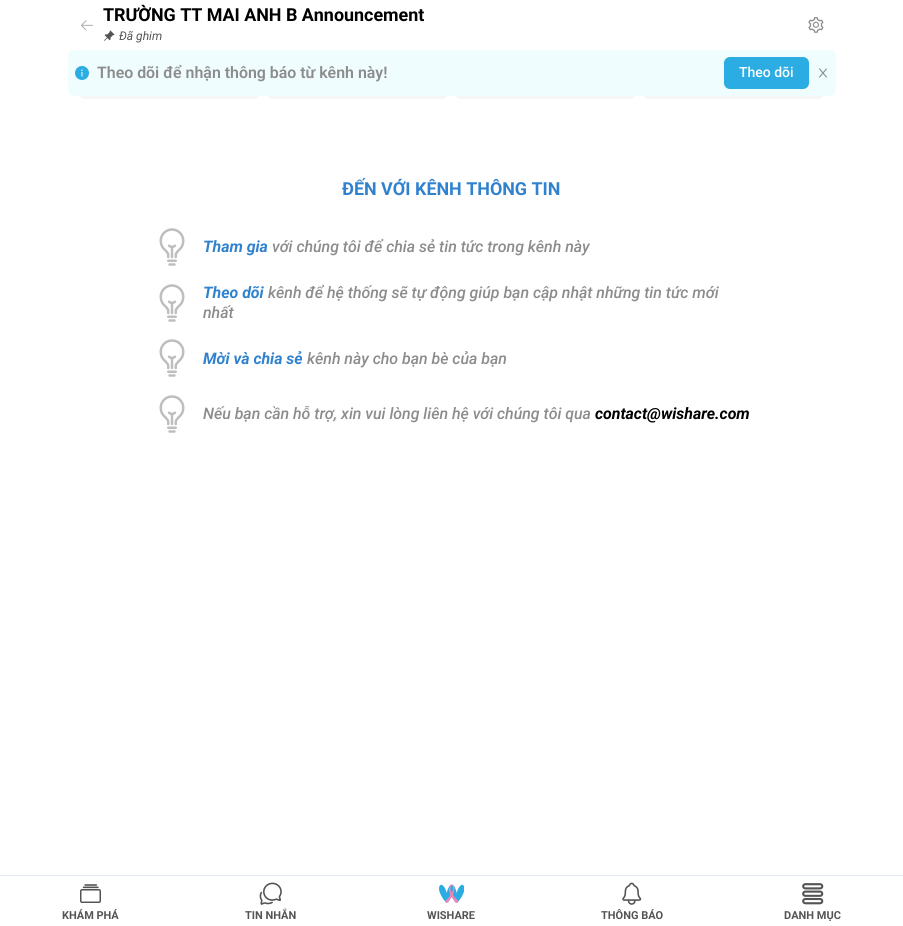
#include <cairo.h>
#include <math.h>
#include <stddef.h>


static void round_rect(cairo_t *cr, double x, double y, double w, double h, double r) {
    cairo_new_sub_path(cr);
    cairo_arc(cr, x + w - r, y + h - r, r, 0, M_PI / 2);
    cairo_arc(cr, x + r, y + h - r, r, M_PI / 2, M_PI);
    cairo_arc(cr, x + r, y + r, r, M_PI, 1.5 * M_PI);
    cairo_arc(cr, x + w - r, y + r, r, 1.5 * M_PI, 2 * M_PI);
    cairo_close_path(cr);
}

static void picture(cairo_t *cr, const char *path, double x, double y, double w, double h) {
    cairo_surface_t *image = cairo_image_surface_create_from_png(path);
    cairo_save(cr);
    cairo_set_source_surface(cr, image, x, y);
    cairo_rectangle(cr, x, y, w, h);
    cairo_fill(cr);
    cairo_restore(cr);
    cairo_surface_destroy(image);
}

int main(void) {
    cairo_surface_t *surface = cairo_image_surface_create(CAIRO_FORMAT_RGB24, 903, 926);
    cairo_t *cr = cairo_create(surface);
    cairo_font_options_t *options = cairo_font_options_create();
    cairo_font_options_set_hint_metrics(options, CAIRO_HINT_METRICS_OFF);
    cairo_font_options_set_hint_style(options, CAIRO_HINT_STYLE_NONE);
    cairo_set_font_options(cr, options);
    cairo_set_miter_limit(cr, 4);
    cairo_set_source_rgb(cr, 1, 1, 1);
    cairo_paint(cr);
    picture(cr, "img1.png", 81, 20, 12, 11);
    cairo_select_font_face(cr, "Roboto", CAIRO_FONT_SLANT_NORMAL, CAIRO_FONT_WEIGHT_BOLD);
    cairo_set_font_size(cr, 17.9);
    cairo_set_source_rgb(cr, 0, 0, 0);
    cairo_move_to(cr, 103, 21);
    cairo_show_text(cr, "TRƯỜNG TT MAI ANH B Announcement");
    picture(cr, "img2.png", 104, 30, 11, 11);
    cairo_select_font_face(cr, "Roboto", CAIRO_FONT_SLANT_ITALIC, CAIRO_FONT_WEIGHT_NORMAL);
    cairo_set_font_size(cr, 12);
    cairo_set_source_rgb(cr, 0.329, 0.329, 0.329);
    cairo_move_to(cr, 119, 40);
    cairo_show_text(cr, "Đã ghim");
    picture(cr, "img3.png", 808, 17, 16, 16);
    cairo_set_source_rgb(cr, 0.961, 0.961, 0.961);
    round_rect(cr, 79, 73, 181, 26, 6);
    cairo_fill(cr);
    round_rect(cr, 267, 73, 181, 26, 6);
    cairo_fill(cr);
    round_rect(cr, 455, 73, 181, 26, 6);
    cairo_fill(cr);
    round_rect(cr, 643, 73, 181, 26, 6);
    cairo_fill(cr);
    cairo_set_source_rgb(cr, 0.941, 0.992, 1);
    round_rect(cr, 68, 50, 768, 46, 6);
    cairo_fill(cr);
    picture(cr, "img4.png", 75, 66, 14, 14);
    cairo_select_font_face(cr, "Roboto SemiBold", CAIRO_FONT_SLANT_NORMAL, CAIRO_FONT_WEIGHT_NORMAL);
    cairo_set_font_size(cr, 15.9);
    cairo_set_source_rgb(cr, 0.549, 0.549, 0.549);
    cairo_move_to(cr, 97, 78);
    cairo_show_text(cr, "Theo dõi để nhận thông báo từ kênh này!");
    cairo_set_source_rgb(cr, 0.169, 0.678, 0.89);
    round_rect(cr, 724, 57, 85, 32, 6);
    cairo_fill(cr);
    cairo_select_font_face(cr, "Roboto Medium", CAIRO_FONT_SLANT_NORMAL, CAIRO_FONT_WEIGHT_NORMAL);
    cairo_set_font_size(cr, 14);
    cairo_set_source_rgb(cr, 1, 1, 1);
    cairo_move_to(cr, 739, 77);
    cairo_show_text(cr, "Theo dõi");
    picture(cr, "img5.png", 818, 68, 10, 10);
    cairo_select_font_face(cr, "Roboto", CAIRO_FONT_SLANT_NORMAL, CAIRO_FONT_WEIGHT_BOLD);
    cairo_set_font_size(cr, 17.9);
    cairo_set_source_rgb(cr, 0.192, 0.51, 0.808);
    cairo_move_to(cr, 342, 195);
    cairo_show_text(cr, "ĐẾN VỚI KÊNH THÔNG TIN");
    picture(cr, "img6.png", 159, 228, 26, 38);
    cairo_select_font_face(cr, "Roboto", CAIRO_FONT_SLANT_ITALIC, CAIRO_FONT_WEIGHT_BOLD);
    cairo_set_font_size(cr, 15.9);
    cairo_move_to(cr, 203, 252);
    cairo_show_text(cr, "Tham gia");
    cairo_select_font_face(cr, "Roboto Medium", CAIRO_FONT_SLANT_ITALIC, CAIRO_FONT_WEIGHT_NORMAL);
    cairo_set_source_rgb(cr, 0.549, 0.549, 0.549);
    cairo_move_to(cr, 272, 252);
    cairo_show_text(cr, "với chúng tôi để chia sẻ tin tức trong kênh này");
    picture(cr, "img6.png", 159, 284, 26, 38);
    cairo_select_font_face(cr, "Roboto", CAIRO_FONT_SLANT_ITALIC, CAIRO_FONT_WEIGHT_BOLD);
    cairo_set_source_rgb(cr, 0.192, 0.51, 0.808);
    cairo_move_to(cr, 203, 298);
    cairo_show_text(cr, "Theo dõi");
    cairo_select_font_face(cr, "Roboto Medium", CAIRO_FONT_SLANT_ITALIC, CAIRO_FONT_WEIGHT_NORMAL);
    cairo_set_source_rgb(cr, 0.549, 0.549, 0.549);
    cairo_move_to(cr, 268, 298);
    cairo_show_text(cr, "kênh để hệ thống sẽ tự động giúp bạn cập nhật những tin tức mới");
    cairo_move_to(cr, 203, 318);
    cairo_show_text(cr, "nhất");
    picture(cr, "img6.png", 159, 339, 26, 38);
    cairo_select_font_face(cr, "Roboto", CAIRO_FONT_SLANT_ITALIC, CAIRO_FONT_WEIGHT_BOLD);
    cairo_set_source_rgb(cr, 0.192, 0.51, 0.808);
    cairo_move_to(cr, 203, 364);
    cairo_show_text(cr, "Mời và chia sẻ");
    cairo_select_font_face(cr, "Roboto Medium", CAIRO_FONT_SLANT_ITALIC, CAIRO_FONT_WEIGHT_NORMAL);
    cairo_set_source_rgb(cr, 0.549, 0.549, 0.549);
    cairo_move_to(cr, 307, 364);
    cairo_show_text(cr, "kênh này cho bạn bè của bạn");
    picture(cr, "img6.png", 159, 395, 26, 38);
    cairo_move_to(cr, 203, 419);
    cairo_show_text(cr, "Nếu bạn cần hỗ trợ, xin vui lòng liên hệ với chúng tôi qua");
    cairo_select_font_face(cr, "Roboto", CAIRO_FONT_SLANT_ITALIC, CAIRO_FONT_WEIGHT_BOLD);
    cairo_set_source_rgb(cr, 0, 0, 0);
    cairo_move_to(cr, 595, 419);
    cairo_show_text(cr, "contact@wishare.com");
    cairo_set_source_rgb(cr, 0.886, 0.91, 0.941);
    cairo_rectangle(cr, 0, 875, 903, 1);
    cairo_fill(cr);
    picture(cr, "img7.png", 80, 884, 21, 19);
    cairo_select_font_face(cr, "Roboto", CAIRO_FONT_SLANT_NORMAL, CAIRO_FONT_WEIGHT_BOLD);
    cairo_set_font_size(cr, 11);
    cairo_set_source_rgb(cr, 0.329, 0.329, 0.329);
    cairo_move_to(cr, 62, 919);
    cairo_show_text(cr, "KHÁM PHÁ");
    picture(cr, "img8.png", 259, 882, 23, 23);
    cairo_move_to(cr, 245, 919);
    cairo_show_text(cr, "TIN NHẮN");
    picture(cr, "img9.png", 439, 884, 25, 19);
    cairo_move_to(cr, 427, 919);
    cairo_show_text(cr, "WISHARE");
    picture(cr, "img10.png", 622, 882, 20, 23);
    cairo_move_to(cr, 601, 919);
    cairo_show_text(cr, "THÔNG BÁO");
    picture(cr, "img11.png", 802, 883, 22, 22);
    cairo_move_to(cr, 784, 919);
    cairo_show_text(cr, "DANH MỤC");
    cairo_surface_write_to_png(surface, "page.png");
    cairo_font_options_destroy(options);
    cairo_destroy(cr);
    cairo_surface_destroy(surface);
    return 0;
}
